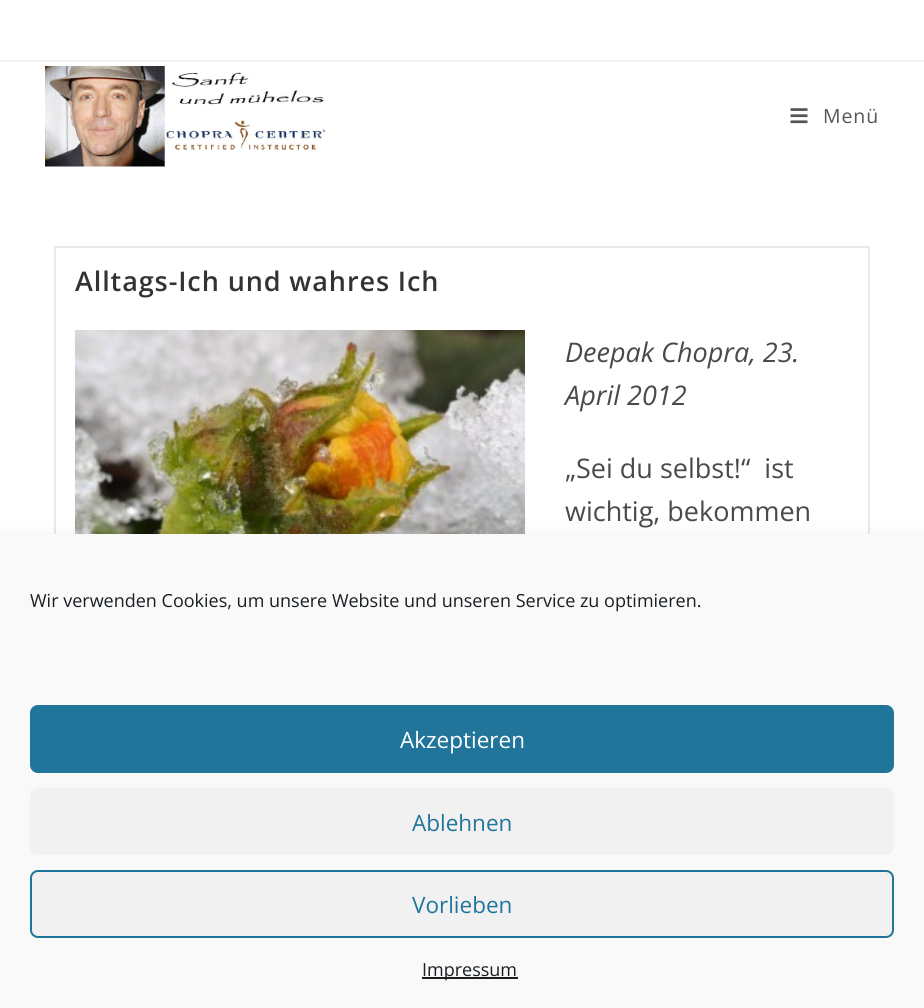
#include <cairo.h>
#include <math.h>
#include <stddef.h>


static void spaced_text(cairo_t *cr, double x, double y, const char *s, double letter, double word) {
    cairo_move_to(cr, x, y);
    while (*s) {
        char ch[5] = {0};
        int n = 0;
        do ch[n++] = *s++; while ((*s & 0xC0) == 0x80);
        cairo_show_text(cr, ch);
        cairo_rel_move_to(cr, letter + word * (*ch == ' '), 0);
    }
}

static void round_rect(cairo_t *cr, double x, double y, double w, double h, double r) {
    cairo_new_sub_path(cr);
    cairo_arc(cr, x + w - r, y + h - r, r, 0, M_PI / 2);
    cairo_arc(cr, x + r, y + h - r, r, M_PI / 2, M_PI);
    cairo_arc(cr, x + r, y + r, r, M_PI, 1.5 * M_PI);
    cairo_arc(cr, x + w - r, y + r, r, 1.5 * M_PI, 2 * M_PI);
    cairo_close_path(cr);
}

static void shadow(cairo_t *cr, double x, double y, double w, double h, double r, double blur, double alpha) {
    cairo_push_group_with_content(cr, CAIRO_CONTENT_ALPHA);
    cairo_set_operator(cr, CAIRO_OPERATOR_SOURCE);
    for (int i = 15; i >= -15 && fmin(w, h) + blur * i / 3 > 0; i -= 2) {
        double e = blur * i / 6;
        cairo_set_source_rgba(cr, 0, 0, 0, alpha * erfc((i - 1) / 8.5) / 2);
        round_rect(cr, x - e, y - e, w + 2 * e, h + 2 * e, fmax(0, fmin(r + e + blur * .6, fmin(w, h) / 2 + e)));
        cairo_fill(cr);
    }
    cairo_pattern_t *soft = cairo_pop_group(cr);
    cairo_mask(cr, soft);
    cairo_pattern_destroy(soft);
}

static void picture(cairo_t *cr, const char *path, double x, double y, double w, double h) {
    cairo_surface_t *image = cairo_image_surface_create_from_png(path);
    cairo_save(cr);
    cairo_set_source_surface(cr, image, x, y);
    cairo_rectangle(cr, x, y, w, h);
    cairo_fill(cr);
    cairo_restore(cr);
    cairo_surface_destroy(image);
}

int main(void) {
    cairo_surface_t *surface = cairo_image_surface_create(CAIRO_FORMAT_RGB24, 924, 1008);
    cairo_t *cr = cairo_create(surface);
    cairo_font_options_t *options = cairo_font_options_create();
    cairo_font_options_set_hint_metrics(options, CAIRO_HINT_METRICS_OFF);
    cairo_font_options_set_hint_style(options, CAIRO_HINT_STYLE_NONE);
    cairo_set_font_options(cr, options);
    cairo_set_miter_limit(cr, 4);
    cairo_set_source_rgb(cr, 1, 1, 1);
    cairo_paint(cr);
    cairo_set_source_rgb(cr, 0.945, 0.945, 0.945);
    cairo_rectangle(cr, 0, 60, 924, 2);
    cairo_fill(cr);
    picture(cr, "img1.png", 45, 66, 281, 101);
    picture(cr, "img2.png", 790, 108, 18, 16);
    cairo_select_font_face(cr, "Open Sans", CAIRO_FONT_SLANT_NORMAL, CAIRO_FONT_WEIGHT_NORMAL);
    cairo_set_font_size(cr, 19.5);
    cairo_set_source_rgb(cr, 0.333, 0.333, 0.333);
    spaced_text(cr, 823, 123, "Menü", 0.9, 0);
    cairo_rectangle(cr, 55, 247, 814, 673);
    cairo_set_source_rgb(cr, 0.914, 0.914, 0.914);
    cairo_stroke(cr);
    cairo_select_font_face(cr, "Open Sans SemiBold", CAIRO_FONT_SLANT_NORMAL, CAIRO_FONT_WEIGHT_NORMAL);
    cairo_set_font_size(cr, 27);
    cairo_set_source_rgb(cr, 0.2, 0.2, 0.2);
    spaced_text(cr, 75, 291, "Alltags-Ich und wahres Ich", 0.9, 0);
    picture(cr, "img3.png", 75, 330, 450, 204);
    cairo_select_font_face(cr, "Open Sans", CAIRO_FONT_SLANT_ITALIC, CAIRO_FONT_WEIGHT_NORMAL);
    cairo_set_source_rgb(cr, 0.29, 0.29, 0.29);
    cairo_move_to(cr, 565, 362);
    cairo_show_text(cr, "Deepak Chopra, 23.");
    cairo_move_to(cr, 565, 405);
    cairo_show_text(cr, "April 2012");
    cairo_select_font_face(cr, "Open Sans", CAIRO_FONT_SLANT_NORMAL, CAIRO_FONT_WEIGHT_NORMAL);
    cairo_move_to(cr, 565, 478);
    cairo_show_text(cr, "„Sei du selbst!“  ist");
    cairo_move_to(cr, 565, 521);
    cairo_show_text(cr, "wichtig, bekommen");
    cairo_set_source_rgb(cr, 0, 0, 0);
    shadow(cr, 0, 549, 924, 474, 0, 15, 0.19);
    cairo_set_source_rgb(cr, 0.976, 0.976, 0.976);
    cairo_rectangle(cr, 0, 534, 924, 474);
    cairo_fill(cr);
    cairo_set_font_size(cr, 18);
    cairo_set_source_rgb(cr, 0.098, 0.118, 0.137);
    cairo_move_to(cr, 30, 607);
    cairo_show_text(cr, "Wir verwenden Cookies, um unsere Website und unseren Service zu optimieren.");
    cairo_set_source_rgb(cr, 0.129, 0.459, 0.608);
    round_rect(cr, 31, 706, 862, 66, 7);
    cairo_fill_preserve(cr);
    cairo_stroke(cr);
    cairo_set_font_size(cr, 22.5);
    cairo_set_source_rgb(cr, 1, 1, 1);
    cairo_move_to(cr, 400, 748);
    cairo_show_text(cr, "Akzeptieren");
    cairo_set_source_rgb(cr, 0.945, 0.945, 0.945);
    round_rect(cr, 30, 788, 864, 67, 8);
    cairo_fill(cr);
    cairo_set_source_rgb(cr, 0.129, 0.459, 0.608);
    cairo_move_to(cr, 412, 831);
    cairo_show_text(cr, "Ablehnen");
    cairo_set_source_rgb(cr, 0.945, 0.945, 0.945);
    round_rect(cr, 31, 871, 862, 66, 7);
    cairo_fill_preserve(cr);
    cairo_set_source_rgb(cr, 0.129, 0.459, 0.608);
    cairo_stroke(cr);
    cairo_move_to(cr, 412, 913);
    cairo_show_text(cr, "Vorlieben");
    cairo_set_source_rgb(cr, 0.098, 0.118, 0.137);
    cairo_rectangle(cr, 422, 977, 96, 2);
    cairo_fill(cr);
    cairo_set_font_size(cr, 18);
    cairo_move_to(cr, 422, 976);
    cairo_show_text(cr, "Impressum");
    cairo_surface_write_to_png(surface, "page.png");
    cairo_font_options_destroy(options);
    cairo_destroy(cr);
    cairo_surface_destroy(surface);
    return 0;
}
